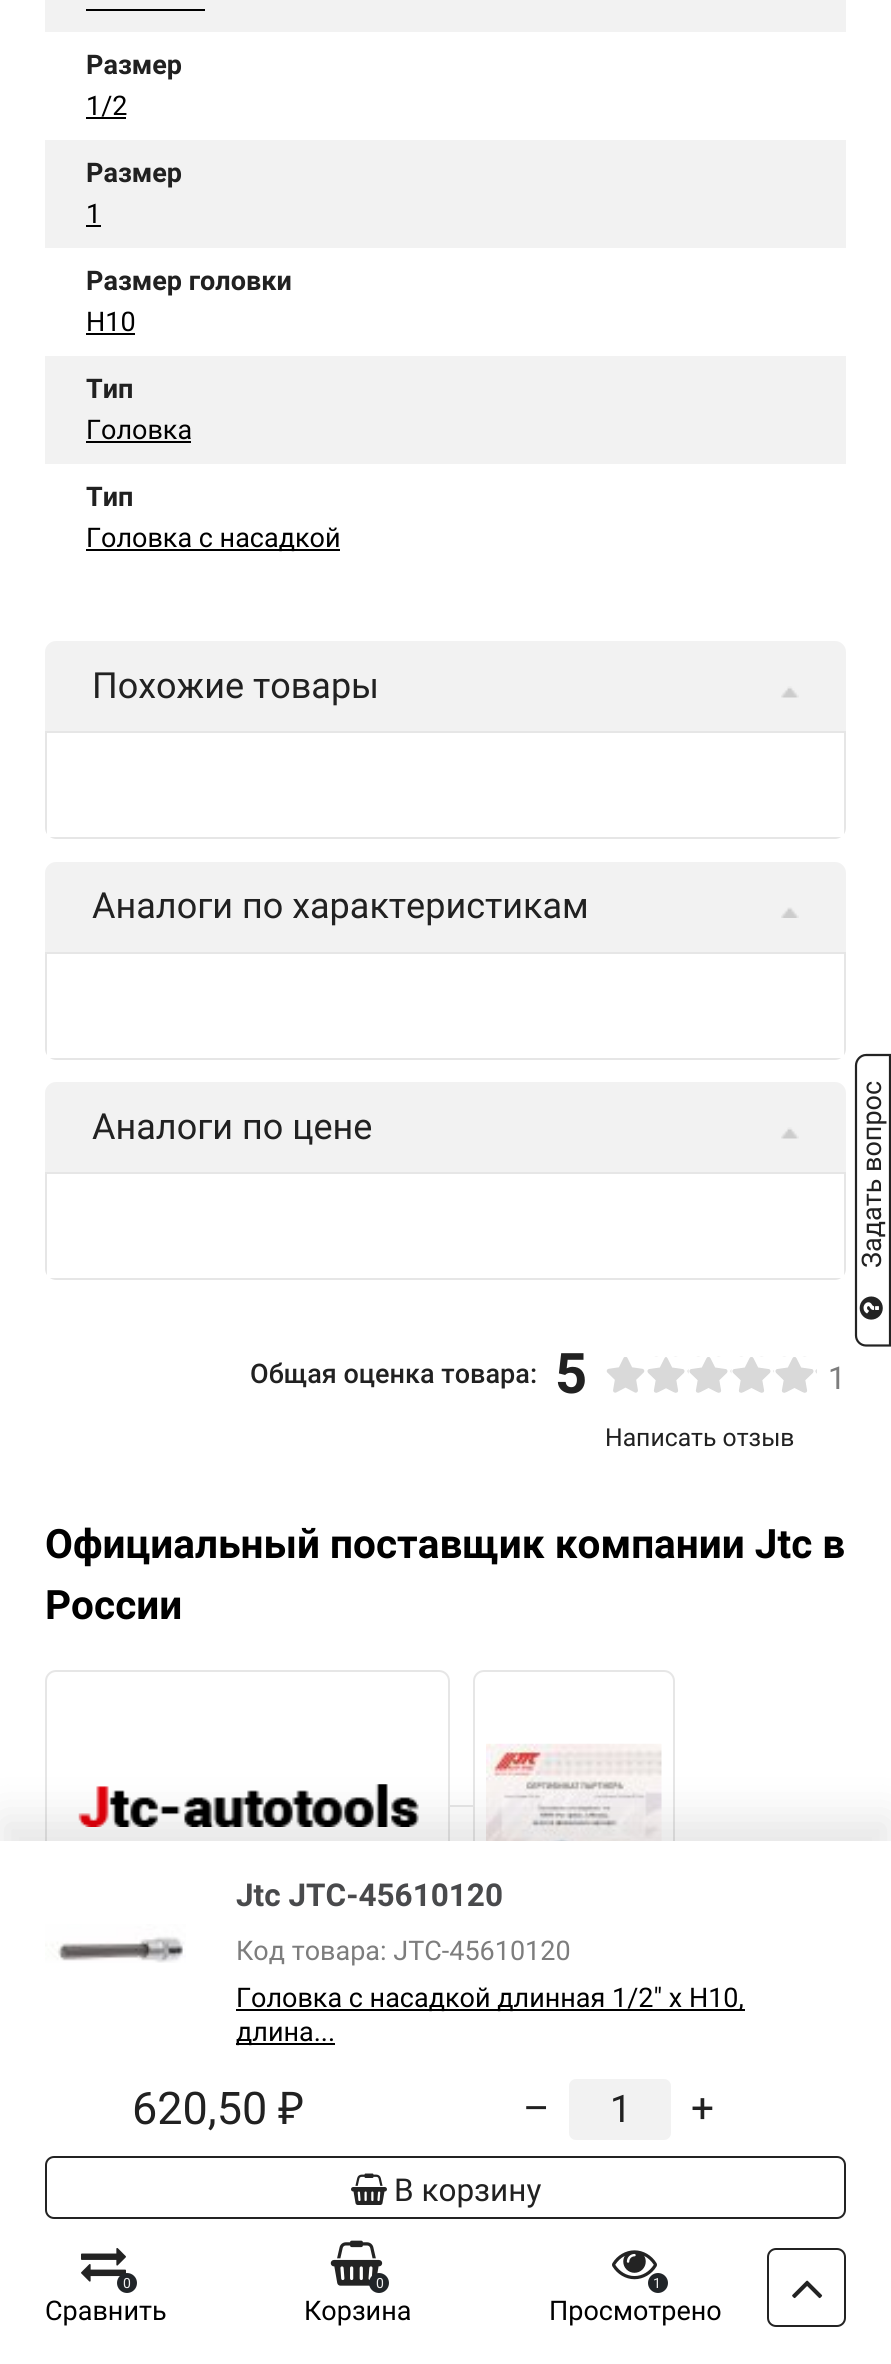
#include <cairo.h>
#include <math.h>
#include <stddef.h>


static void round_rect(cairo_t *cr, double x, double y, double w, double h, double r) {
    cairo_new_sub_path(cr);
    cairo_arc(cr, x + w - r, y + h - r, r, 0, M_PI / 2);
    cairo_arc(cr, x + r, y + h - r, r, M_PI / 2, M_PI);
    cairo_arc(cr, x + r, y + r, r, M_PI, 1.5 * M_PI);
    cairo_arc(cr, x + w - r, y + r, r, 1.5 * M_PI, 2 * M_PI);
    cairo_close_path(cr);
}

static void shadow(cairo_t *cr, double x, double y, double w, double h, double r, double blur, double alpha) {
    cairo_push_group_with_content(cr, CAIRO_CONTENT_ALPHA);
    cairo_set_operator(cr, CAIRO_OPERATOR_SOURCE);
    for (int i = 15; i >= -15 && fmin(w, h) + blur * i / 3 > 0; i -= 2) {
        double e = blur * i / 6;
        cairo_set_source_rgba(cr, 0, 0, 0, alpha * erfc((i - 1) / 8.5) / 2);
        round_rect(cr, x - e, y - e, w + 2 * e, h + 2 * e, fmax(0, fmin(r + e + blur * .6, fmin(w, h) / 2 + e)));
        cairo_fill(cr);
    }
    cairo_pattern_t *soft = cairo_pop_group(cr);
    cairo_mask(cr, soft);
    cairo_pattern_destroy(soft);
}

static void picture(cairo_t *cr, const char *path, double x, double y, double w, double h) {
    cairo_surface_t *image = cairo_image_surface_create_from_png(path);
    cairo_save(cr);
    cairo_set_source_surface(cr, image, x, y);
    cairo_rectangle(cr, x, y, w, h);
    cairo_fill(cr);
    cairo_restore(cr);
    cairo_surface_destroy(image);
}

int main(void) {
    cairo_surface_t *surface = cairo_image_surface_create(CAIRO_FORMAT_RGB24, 891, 2364);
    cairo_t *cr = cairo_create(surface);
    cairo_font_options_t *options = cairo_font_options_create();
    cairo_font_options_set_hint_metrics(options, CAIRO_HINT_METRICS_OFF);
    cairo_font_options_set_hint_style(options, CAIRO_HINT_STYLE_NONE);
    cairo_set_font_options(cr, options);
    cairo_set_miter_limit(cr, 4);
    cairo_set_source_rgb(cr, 1, 1, 1);
    cairo_paint(cr);
    cairo_set_source_rgb(cr, 0.949, 0.949, 0.949);
    cairo_rectangle(cr, 45, 0, 801, 32);
    cairo_fill(cr);
    cairo_set_source_rgb(cr, 0, 0, 0);
    cairo_rectangle(cr, 86, 9, 119, 2);
    cairo_fill(cr);
    cairo_select_font_face(cr, "Roboto", CAIRO_FONT_SLANT_NORMAL, CAIRO_FONT_WEIGHT_BOLD);
    cairo_set_font_size(cr, 27);
    cairo_set_source_rgb(cr, 0.129, 0.129, 0.129);
    cairo_move_to(cr, 86, 74);
    cairo_show_text(cr, "Размер");
    cairo_select_font_face(cr, "Roboto", CAIRO_FONT_SLANT_NORMAL, CAIRO_FONT_WEIGHT_NORMAL);
    cairo_set_source_rgb(cr, 0, 0, 0);
    cairo_move_to(cr, 86, 115);
    cairo_show_text(cr, "1/2");
    cairo_rectangle(cr, 86, 117, 40, 2);
    cairo_fill(cr);
    cairo_set_source_rgb(cr, 0.949, 0.949, 0.949);
    cairo_rectangle(cr, 45, 140, 801, 108);
    cairo_fill(cr);
    cairo_select_font_face(cr, "Roboto", CAIRO_FONT_SLANT_NORMAL, CAIRO_FONT_WEIGHT_BOLD);
    cairo_set_source_rgb(cr, 0.129, 0.129, 0.129);
    cairo_move_to(cr, 86, 182);
    cairo_show_text(cr, "Размер");
    cairo_select_font_face(cr, "Roboto", CAIRO_FONT_SLANT_NORMAL, CAIRO_FONT_WEIGHT_NORMAL);
    cairo_set_source_rgb(cr, 0, 0, 0);
    cairo_move_to(cr, 86, 223);
    cairo_show_text(cr, "1");
    cairo_rectangle(cr, 86, 225, 15, 2);
    cairo_fill(cr);
    cairo_select_font_face(cr, "Roboto", CAIRO_FONT_SLANT_NORMAL, CAIRO_FONT_WEIGHT_BOLD);
    cairo_set_source_rgb(cr, 0.129, 0.129, 0.129);
    cairo_move_to(cr, 86, 290);
    cairo_show_text(cr, "Размер головки");
    cairo_select_font_face(cr, "Roboto", CAIRO_FONT_SLANT_NORMAL, CAIRO_FONT_WEIGHT_NORMAL);
    cairo_set_source_rgb(cr, 0, 0, 0);
    cairo_move_to(cr, 86, 331);
    cairo_show_text(cr, "H10");
    cairo_rectangle(cr, 86, 333, 49, 2);
    cairo_fill(cr);
    cairo_set_source_rgb(cr, 0.949, 0.949, 0.949);
    cairo_rectangle(cr, 45, 356, 801, 108);
    cairo_fill(cr);
    cairo_select_font_face(cr, "Roboto", CAIRO_FONT_SLANT_NORMAL, CAIRO_FONT_WEIGHT_BOLD);
    cairo_set_source_rgb(cr, 0.129, 0.129, 0.129);
    cairo_move_to(cr, 86, 398);
    cairo_show_text(cr, "Тип");
    cairo_select_font_face(cr, "Roboto", CAIRO_FONT_SLANT_NORMAL, CAIRO_FONT_WEIGHT_NORMAL);
    cairo_set_source_rgb(cr, 0, 0, 0);
    cairo_move_to(cr, 86, 439);
    cairo_show_text(cr, "Головка");
    cairo_rectangle(cr, 86, 441, 105, 2);
    cairo_fill(cr);
    cairo_select_font_face(cr, "Roboto", CAIRO_FONT_SLANT_NORMAL, CAIRO_FONT_WEIGHT_BOLD);
    cairo_set_source_rgb(cr, 0.129, 0.129, 0.129);
    cairo_move_to(cr, 86, 506);
    cairo_show_text(cr, "Тип");
    cairo_set_source_rgb(cr, 0, 0, 0);
    cairo_rectangle(cr, 86, 549, 254, 2);
    cairo_fill(cr);
    cairo_select_font_face(cr, "Roboto", CAIRO_FONT_SLANT_NORMAL, CAIRO_FONT_WEIGHT_NORMAL);
    cairo_move_to(cr, 86, 547);
    cairo_show_text(cr, "Головка с насадкой");
    cairo_set_source_rgb(cr, 0.949, 0.949, 0.949);
    cairo_new_path(cr);
    cairo_move_to(cr, 56, 641);
    cairo_line_to(cr, 835, 641);
    cairo_curve_to(cr, 841, 641, 846, 646, 846, 652);
    cairo_line_to(cr, 846, 731);
    cairo_line_to(cr, 45, 731);
    cairo_line_to(cr, 45, 652);
    cairo_curve_to(cr, 45, 646, 50, 641, 56, 641);
    cairo_close_path(cr);
    cairo_fill(cr);
    cairo_set_font_size(cr, 36);
    cairo_set_source_rgb(cr, 0.129, 0.129, 0.129);
    cairo_move_to(cr, 92, 698);
    cairo_show_text(cr, "Похожие товары");
    picture(cr, "img1.png", 781, 686, 18, 12);
    cairo_set_source_rgb(cr, 0.902, 0.902, 0.902);
    cairo_set_fill_rule(cr, CAIRO_FILL_RULE_EVEN_ODD);
    cairo_new_path(cr);
    cairo_move_to(cr, 47, 733);
    cairo_line_to(cr, 844, 733);
    cairo_line_to(cr, 844, 834);
    cairo_curve_to(cr, 845, 833, 846, 830, 846, 828);
    cairo_line_to(cr, 846, 731);
    cairo_line_to(cr, 45, 731);
    cairo_line_to(cr, 45, 828);
    cairo_curve_to(cr, 45, 830, 46, 833, 47, 834);
    cairo_close_path(cr);
    cairo_move_to(cr, 835, 839);
    cairo_curve_to(cr, 837, 839, 840, 838, 841, 837);
    cairo_line_to(cr, 50, 837);
    cairo_curve_to(cr, 51, 838, 54, 839, 56, 839);
    cairo_close_path(cr);
    cairo_fill(cr);
    cairo_set_source_rgb(cr, 0.949, 0.949, 0.949);
    cairo_new_path(cr);
    cairo_move_to(cr, 56, 862);
    cairo_line_to(cr, 835, 862);
    cairo_curve_to(cr, 841, 862, 846, 867, 846, 873);
    cairo_line_to(cr, 846, 952);
    cairo_line_to(cr, 45, 952);
    cairo_line_to(cr, 45, 873);
    cairo_curve_to(cr, 45, 867, 50, 862, 56, 862);
    cairo_close_path(cr);
    cairo_fill(cr);
    cairo_set_source_rgb(cr, 0.129, 0.129, 0.129);
    cairo_move_to(cr, 92, 918);
    cairo_show_text(cr, "Аналоги по характеристикам");
    picture(cr, "img2.png", 781, 907, 18, 11);
    cairo_set_source_rgb(cr, 0.902, 0.902, 0.902);
    cairo_new_path(cr);
    cairo_move_to(cr, 47, 954);
    cairo_line_to(cr, 844, 954);
    cairo_line_to(cr, 844, 1055);
    cairo_curve_to(cr, 845, 1054, 846, 1051, 846, 1049);
    cairo_line_to(cr, 846, 952);
    cairo_line_to(cr, 45, 952);
    cairo_line_to(cr, 45, 1049);
    cairo_curve_to(cr, 45, 1051, 46, 1054, 47, 1055);
    cairo_close_path(cr);
    cairo_move_to(cr, 835, 1060);
    cairo_curve_to(cr, 837, 1060, 840, 1059, 841, 1058);
    cairo_line_to(cr, 50, 1058);
    cairo_curve_to(cr, 51, 1059, 54, 1060, 56, 1060);
    cairo_close_path(cr);
    cairo_fill(cr);
    cairo_set_source_rgb(cr, 0.949, 0.949, 0.949);
    cairo_new_path(cr);
    cairo_move_to(cr, 56, 1082);
    cairo_line_to(cr, 835, 1082);
    cairo_curve_to(cr, 841, 1082, 846, 1087, 846, 1093);
    cairo_line_to(cr, 846, 1172);
    cairo_line_to(cr, 45, 1172);
    cairo_line_to(cr, 45, 1093);
    cairo_curve_to(cr, 45, 1087, 50, 1082, 56, 1082);
    cairo_close_path(cr);
    cairo_fill(cr);
    cairo_set_source_rgb(cr, 0.129, 0.129, 0.129);
    cairo_move_to(cr, 92, 1139);
    cairo_show_text(cr, "Аналоги по цене");
    picture(cr, "img1.png", 781, 1127, 18, 12);
    cairo_set_source_rgb(cr, 0.902, 0.902, 0.902);
    cairo_new_path(cr);
    cairo_move_to(cr, 47, 1174);
    cairo_line_to(cr, 844, 1174);
    cairo_line_to(cr, 844, 1275);
    cairo_curve_to(cr, 845, 1274, 846, 1271, 846, 1269);
    cairo_line_to(cr, 846, 1172);
    cairo_line_to(cr, 45, 1172);
    cairo_line_to(cr, 45, 1269);
    cairo_curve_to(cr, 45, 1271, 46, 1274, 47, 1275);
    cairo_close_path(cr);
    cairo_move_to(cr, 835, 1280);
    cairo_curve_to(cr, 837, 1280, 840, 1279, 841, 1278);
    cairo_line_to(cr, 50, 1278);
    cairo_curve_to(cr, 51, 1279, 54, 1280, 56, 1280);
    cairo_close_path(cr);
    cairo_fill(cr);
    cairo_select_font_face(cr, "Roboto Medium", CAIRO_FONT_SLANT_NORMAL, CAIRO_FONT_WEIGHT_NORMAL);
    cairo_set_font_size(cr, 27);
    cairo_set_source_rgb(cr, 0.129, 0.129, 0.129);
    cairo_move_to(cr, 250, 1383);
    cairo_show_text(cr, "Общая оценка товара:");
    cairo_select_font_face(cr, "Roboto", CAIRO_FONT_SLANT_NORMAL, CAIRO_FONT_WEIGHT_BOLD);
    cairo_set_font_size(cr, 56);
    cairo_move_to(cr, 555, 1393);
    cairo_show_text(cr, "5");
    picture(cr, "img3.png", 606, 1357, 39, 36);
    picture(cr, "img4.png", 647, 1356, 42, 37);
    picture(cr, "img5.png", 689, 1356, 43, 37);
    picture(cr, "img6.png", 732, 1356, 42, 37);
    picture(cr, "img7.png", 775, 1356, 42, 37);
    cairo_select_font_face(cr, "Roboto", CAIRO_FONT_SLANT_NORMAL, CAIRO_FONT_WEIGHT_NORMAL);
    cairo_set_font_size(cr, 31.5);
    cairo_set_source_rgb(cr, 0.49, 0.49, 0.49);
    cairo_move_to(cr, 828, 1389);
    cairo_show_text(cr, "1");
    cairo_set_font_size(cr, 24.75);
    cairo_set_source_rgb(cr, 0.129, 0.129, 0.129);
    cairo_move_to(cr, 605, 1446);
    cairo_show_text(cr, "Написать отзыв");
    cairo_select_font_face(cr, "Roboto", CAIRO_FONT_SLANT_NORMAL, CAIRO_FONT_WEIGHT_BOLD);
    cairo_set_font_size(cr, 40.5);
    cairo_set_source_rgb(cr, 0, 0, 0);
    cairo_move_to(cr, 45, 1558);
    cairo_show_text(cr, "Официальный поставщик компании Jtc в");
    cairo_move_to(cr, 45, 1619);
    cairo_show_text(cr, "России");
    round_rect(cr, 46, 1671, 403, 270, 10);
    cairo_set_source_rgb(cr, 0.902, 0.902, 0.902);
    cairo_stroke(cr);
    picture(cr, "img8.png", 78, 1784, 341, 43);
    cairo_rectangle(cr, 450, 1805, 23, 2);
    cairo_fill(cr);
    round_rect(cr, 474, 1671, 200, 270, 10);
    cairo_stroke(cr);
    picture(cr, "img9.png", 486, 1743, 176, 98);
    cairo_new_path(cr);
    cairo_move_to(cr, 856, 1335.5);
    cairo_line_to(cr, 856, 1065.5);
    cairo_curve_to(cr, 856, 1060, 860.5, 1055, 866, 1055);
    cairo_line_to(cr, 890, 1055);
    cairo_line_to(cr, 890, 1345.5);
    cairo_line_to(cr, 866, 1345.5);
    cairo_curve_to(cr, 860.5, 1345.5, 856, 1341, 856, 1335.5);
    cairo_close_path(cr);
    cairo_set_source_rgb(cr, 0.137, 0.137, 0.137);
    cairo_set_line_width(cr, 2.2);
    cairo_stroke(cr);
    cairo_select_font_face(cr, "Roboto", CAIRO_FONT_SLANT_NORMAL, CAIRO_FONT_WEIGHT_NORMAL);
    cairo_set_font_size(cr, 27);
    cairo_set_source_rgb(cr, 0.129, 0.129, 0.129);
    cairo_save(cr);
    cairo_translate(cr, 881, 1268);
    cairo_rotate(cr, -90 * M_PI / 180);
    cairo_move_to(cr, 0, 0);
    cairo_show_text(cr, "Задать вопрос");
    cairo_restore(cr);
    picture(cr, "img10.png", 859, 1296, 24, 24);
    cairo_set_source_rgb(cr, 0, 0, 0);
    shadow(cr, 0, 1818, 891, 524, 0, 22.5, 0.1);
    cairo_set_source_rgb(cr, 1, 1, 1);
    cairo_rectangle(cr, 0, 1841, 891, 523);
    cairo_fill(cr);
    picture(cr, "img11.png", 45, 1924, 141, 39);
    cairo_select_font_face(cr, "Roboto", CAIRO_FONT_SLANT_NORMAL, CAIRO_FONT_WEIGHT_BOLD);
    cairo_set_font_size(cr, 31.5);
    cairo_set_source_rgb(cr, 0.286, 0.29, 0.298);
    cairo_move_to(cr, 236, 1906);
    cairo_show_text(cr, "Jtc JTC-45610120");
    cairo_select_font_face(cr, "Roboto", CAIRO_FONT_SLANT_NORMAL, CAIRO_FONT_WEIGHT_NORMAL);
    cairo_set_font_size(cr, 27);
    cairo_set_source_rgb(cr, 0.49, 0.49, 0.49);
    cairo_move_to(cr, 236, 1960);
    cairo_show_text(cr, "Код товара: JTC-45610120");
    cairo_set_source_rgb(cr, 0, 0, 0);
    cairo_rectangle(cr, 236, 2009, 509, 2);
    cairo_fill(cr);
    cairo_move_to(cr, 236, 2007);
    cairo_show_text(cr, "Головка с насадкой длинная 1/2\" х H10,");
    cairo_rectangle(cr, 236, 2043, 99, 2);
    cairo_fill(cr);
    cairo_move_to(cr, 236, 2041);
    cairo_show_text(cr, "длина...");
    cairo_set_font_size(cr, 45);
    cairo_set_source_rgb(cr, 0.129, 0.129, 0.129);
    cairo_move_to(cr, 132, 2124);
    cairo_show_text(cr, "620,50");
    cairo_select_font_face(cr, "Noto Sans", CAIRO_FONT_SLANT_NORMAL, CAIRO_FONT_WEIGHT_NORMAL);
    cairo_move_to(cr, 278, 2124);
    cairo_show_text(cr, "₽");
    cairo_select_font_face(cr, "Roboto", CAIRO_FONT_SLANT_NORMAL, CAIRO_FONT_WEIGHT_NORMAL);
    cairo_set_font_size(cr, 40.5);
    cairo_move_to(cr, 523, 2122);
    cairo_show_text(cr, "–");
    cairo_set_source_rgb(cr, 0.949, 0.949, 0.949);
    round_rect(cr, 569, 2079, 102, 61, 7);
    cairo_fill(cr);
    cairo_set_font_size(cr, 38);
    cairo_set_source_rgb(cr, 0.129, 0.129, 0.129);
    cairo_move_to(cr, 610, 2122);
    cairo_show_text(cr, "1");
    cairo_set_font_size(cr, 40.5);
    cairo_move_to(cr, 691, 2122);
    cairo_show_text(cr, "+");
    round_rect(cr, 46, 2157, 799, 61, 8);
    cairo_set_source_rgb(cr, 0.137, 0.137, 0.137);
    cairo_set_line_width(cr, 2);
    cairo_stroke(cr);
    picture(cr, "img12.png", 351, 2173, 36, 32);
    cairo_set_font_size(cr, 31.5);
    cairo_set_source_rgb(cr, 0.129, 0.129, 0.129);
    cairo_move_to(cr, 394, 2201);
    cairo_show_text(cr, "В корзину");
    picture(cr, "img13.png", 81, 2248, 45, 34);
    cairo_set_source_rgb(cr, 0.129, 0.145, 0.161);
    cairo_arc(cr, 127, 2283, 10, 0, 2 * M_PI);
    cairo_fill(cr);
    cairo_set_font_size(cr, 14);
    cairo_set_source_rgb(cr, 0.941, 0.941, 0.945);
    cairo_move_to(cr, 123, 2288);
    cairo_show_text(cr, "0");
    cairo_set_font_size(cr, 27);
    cairo_set_source_rgb(cr, 0, 0, 0);
    cairo_move_to(cr, 45, 2320);
    cairo_show_text(cr, "Сравнить");
    picture(cr, "img14.png", 330, 2240, 53, 46);
    cairo_set_source_rgb(cr, 0.129, 0.145, 0.161);
    cairo_arc(cr, 379, 2283, 10, 0, 2 * M_PI);
    cairo_fill(cr);
    cairo_set_font_size(cr, 14);
    cairo_set_source_rgb(cr, 0.941, 0.941, 0.945);
    cairo_move_to(cr, 376, 2288);
    cairo_show_text(cr, "0");
    cairo_set_font_size(cr, 27);
    cairo_set_source_rgb(cr, 0, 0, 0);
    cairo_move_to(cr, 304, 2320);
    cairo_show_text(cr, "Корзина");
    picture(cr, "img15.png", 612, 2250, 45, 30);
    cairo_set_source_rgb(cr, 0.129, 0.145, 0.161);
    cairo_arc(cr, 658, 2283, 10, 0, 2 * M_PI);
    cairo_fill(cr);
    cairo_set_font_size(cr, 14);
    cairo_set_source_rgb(cr, 0.941, 0.941, 0.945);
    cairo_move_to(cr, 653, 2288);
    cairo_show_text(cr, "1");
    cairo_set_font_size(cr, 27);
    cairo_set_source_rgb(cr, 0, 0, 0);
    cairo_move_to(cr, 549, 2320);
    cairo_show_text(cr, "Просмотрено");
    round_rect(cr, 768, 2249, 77, 77, 8);
    cairo_set_source_rgb(cr, 0.137, 0.137, 0.137);
    cairo_stroke(cr);
    picture(cr, "img16.png", 792, 2280, 31, 19);
    cairo_surface_write_to_png(surface, "page.png");
    cairo_font_options_destroy(options);
    cairo_destroy(cr);
    cairo_surface_destroy(surface);
    return 0;
}
